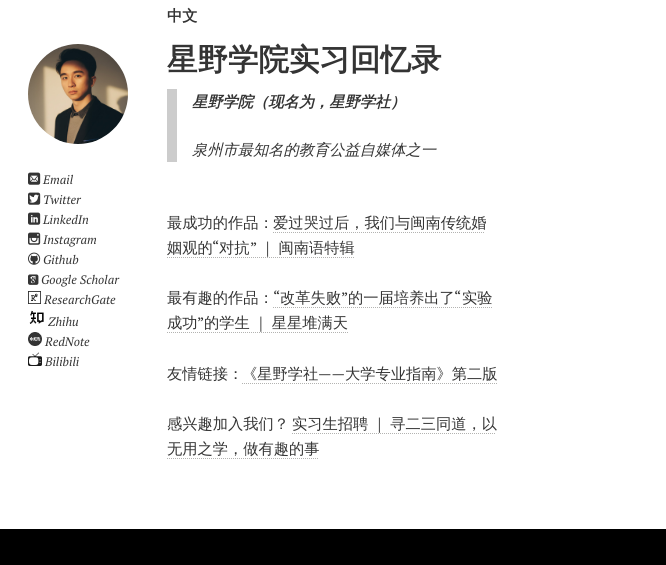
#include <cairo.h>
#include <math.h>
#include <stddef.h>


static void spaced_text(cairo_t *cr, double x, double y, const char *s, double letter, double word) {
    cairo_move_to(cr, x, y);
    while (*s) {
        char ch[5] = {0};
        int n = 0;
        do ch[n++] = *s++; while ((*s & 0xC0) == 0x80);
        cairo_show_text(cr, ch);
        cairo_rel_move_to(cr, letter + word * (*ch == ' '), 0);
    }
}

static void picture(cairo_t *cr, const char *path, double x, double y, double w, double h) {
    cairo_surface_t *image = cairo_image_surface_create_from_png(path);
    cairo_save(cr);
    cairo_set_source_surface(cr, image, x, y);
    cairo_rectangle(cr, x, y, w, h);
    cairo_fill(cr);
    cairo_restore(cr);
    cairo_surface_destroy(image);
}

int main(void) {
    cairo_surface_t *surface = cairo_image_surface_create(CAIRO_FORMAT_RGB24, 666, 565);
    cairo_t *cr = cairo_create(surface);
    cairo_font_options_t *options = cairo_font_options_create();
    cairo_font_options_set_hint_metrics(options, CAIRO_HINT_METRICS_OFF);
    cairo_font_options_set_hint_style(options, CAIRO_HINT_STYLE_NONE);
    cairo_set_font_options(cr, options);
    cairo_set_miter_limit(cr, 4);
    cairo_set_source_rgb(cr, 1, 1, 1);
    cairo_paint(cr);
    cairo_select_font_face(cr, "WenQuanYi Zen Hei", CAIRO_FONT_SLANT_NORMAL, CAIRO_FONT_WEIGHT_BOLD);
    cairo_set_font_size(cr, 15.25);
    cairo_set_source_rgb(cr, 0.204, 0.204, 0.204);
    cairo_move_to(cr, 167, 21);
    cairo_show_text(cr, "中文");
    picture(cr, "img1.png", 28, 44, 100, 100);
    picture(cr, "img2.png", 28, 172, 13, 13);
    cairo_select_font_face(cr, "PT Serif", CAIRO_FONT_SLANT_ITALIC, CAIRO_FONT_WEIGHT_NORMAL);
    cairo_set_font_size(cr, 12.25);
    cairo_move_to(cr, 43, 184);
    cairo_show_text(cr, "Email");
    picture(cr, "img3.png", 28, 192, 13, 13);
    cairo_move_to(cr, 43, 204);
    cairo_show_text(cr, "Twitter");
    picture(cr, "img4.png", 28, 212, 13, 13);
    cairo_move_to(cr, 43, 224);
    cairo_show_text(cr, "LinkedIn");
    picture(cr, "img5.png", 28, 232, 13, 13);
    cairo_move_to(cr, 43, 244);
    cairo_show_text(cr, "Instagram");
    picture(cr, "img6.png", 28, 252, 13, 13);
    cairo_move_to(cr, 43, 264);
    cairo_show_text(cr, "Github");
    picture(cr, "img7.png", 28, 274, 11, 11);
    cairo_move_to(cr, 41, 284);
    cairo_show_text(cr, "Google Scholar");
    picture(cr, "img8.png", 28, 291, 13, 13);
    cairo_move_to(cr, 44, 304);
    cairo_show_text(cr, "ResearchGate");
    picture(cr, "img9.png", 29, 310, 15, 14);
    cairo_move_to(cr, 48, 326);
    cairo_show_text(cr, "Zhihu");
    picture(cr, "img10.png", 28, 332, 14, 14);
    cairo_move_to(cr, 45, 346);
    cairo_show_text(cr, "RedNote");
    picture(cr, "img11.png", 28, 352, 14, 14);
    cairo_move_to(cr, 45, 366);
    cairo_show_text(cr, "Bilibili");
    cairo_select_font_face(cr, "WenQuanYi Zen Hei", CAIRO_FONT_SLANT_NORMAL, CAIRO_FONT_WEIGHT_BOLD);
    cairo_set_font_size(cr, 30.5);
    cairo_move_to(cr, 167, 70);
    cairo_show_text(cr, "星野学院实习回忆录");
    cairo_set_source_rgb(cr, 0.8, 0.8, 0.8);
    cairo_rectangle(cr, 167, 89, 10, 73);
    cairo_fill(cr);
    cairo_select_font_face(cr, "WenQuanYi Zen Hei", CAIRO_FONT_SLANT_ITALIC, CAIRO_FONT_WEIGHT_BOLD);
    cairo_set_font_size(cr, 15.25);
    cairo_set_source_rgb(cr, 0.204, 0.204, 0.204);
    cairo_move_to(cr, 192, 107);
    cairo_show_text(cr, "星野学院（现名为，星野学社）");
    cairo_select_font_face(cr, "WenQuanYi Zen Hei Medium", CAIRO_FONT_SLANT_ITALIC, CAIRO_FONT_WEIGHT_NORMAL);
    cairo_move_to(cr, 192, 155);
    cairo_show_text(cr, "泉州市最知名的教育公益自媒体之一");
    cairo_select_font_face(cr, "WenQuanYi Zen Hei Medium", CAIRO_FONT_SLANT_NORMAL, CAIRO_FONT_WEIGHT_NORMAL);
    cairo_move_to(cr, 167, 228);
    cairo_show_text(cr, "最成功的作品：");
    cairo_move_to(cr, 273, 228);
    cairo_show_text(cr, "爱过哭过后，我们与闽南传统婚");
    cairo_new_path(cr);
    cairo_move_to(cr, 273, 232.5);
    cairo_line_to(cr, 485, 232.5);
    cairo_set_source_rgb(cr, 0.702, 0.702, 0.694);
    cairo_set_line_width(cr, 1);
    cairo_set_dash(cr, (double[]){1, 1}, 2, 0);
    cairo_stroke(cr);
    cairo_set_source_rgb(cr, 0.204, 0.204, 0.204);
    cairo_move_to(cr, 167, 253);
    cairo_show_text(cr, "姻观的");
    cairo_select_font_face(cr, "PT Serif", CAIRO_FONT_SLANT_NORMAL, CAIRO_FONT_WEIGHT_NORMAL);
    cairo_move_to(cr, 212, 253);
    cairo_show_text(cr, "“");
    cairo_select_font_face(cr, "WenQuanYi Zen Hei Medium", CAIRO_FONT_SLANT_NORMAL, CAIRO_FONT_WEIGHT_NORMAL);
    cairo_move_to(cr, 219, 253);
    cairo_show_text(cr, "对抗");
    cairo_select_font_face(cr, "PT Serif", CAIRO_FONT_SLANT_NORMAL, CAIRO_FONT_WEIGHT_NORMAL);
    cairo_move_to(cr, 250, 253);
    cairo_show_text(cr, "”");
    cairo_select_font_face(cr, "WenQuanYi Zen Hei Medium", CAIRO_FONT_SLANT_NORMAL, CAIRO_FONT_WEIGHT_NORMAL);
    spaced_text(cr, 260, 253, "｜ 闽南语特辑", 0, -1);
    cairo_new_path(cr);
    cairo_move_to(cr, 167, 257.5);
    cairo_line_to(cr, 355, 257.5);
    cairo_set_source_rgb(cr, 0.702, 0.702, 0.694);
    cairo_stroke(cr);
    cairo_set_source_rgb(cr, 0.204, 0.204, 0.204);
    cairo_move_to(cr, 167, 303);
    cairo_show_text(cr, "最有趣的作品：");
    cairo_select_font_face(cr, "PT Serif", CAIRO_FONT_SLANT_NORMAL, CAIRO_FONT_WEIGHT_NORMAL);
    cairo_move_to(cr, 273, 303);
    cairo_show_text(cr, "“");
    cairo_select_font_face(cr, "WenQuanYi Zen Hei Medium", CAIRO_FONT_SLANT_NORMAL, CAIRO_FONT_WEIGHT_NORMAL);
    cairo_move_to(cr, 280, 303);
    cairo_show_text(cr, "改革失败");
    cairo_new_path(cr);
    cairo_move_to(cr, 273, 307.5);
    cairo_line_to(cr, 492, 307.5);
    cairo_set_source_rgb(cr, 0.702, 0.702, 0.694);
    cairo_stroke(cr);
    cairo_select_font_face(cr, "PT Serif", CAIRO_FONT_SLANT_NORMAL, CAIRO_FONT_WEIGHT_NORMAL);
    cairo_set_source_rgb(cr, 0.204, 0.204, 0.204);
    cairo_move_to(cr, 341, 303);
    cairo_show_text(cr, "”");
    cairo_select_font_face(cr, "WenQuanYi Zen Hei Medium", CAIRO_FONT_SLANT_NORMAL, CAIRO_FONT_WEIGHT_NORMAL);
    cairo_move_to(cr, 348, 303);
    cairo_show_text(cr, "的一届培养出了");
    cairo_select_font_face(cr, "PT Serif", CAIRO_FONT_SLANT_NORMAL, CAIRO_FONT_WEIGHT_NORMAL);
    cairo_move_to(cr, 454, 303);
    cairo_show_text(cr, "“");
    cairo_select_font_face(cr, "WenQuanYi Zen Hei Medium", CAIRO_FONT_SLANT_NORMAL, CAIRO_FONT_WEIGHT_NORMAL);
    cairo_move_to(cr, 462, 303);
    cairo_show_text(cr, "实验");
    cairo_move_to(cr, 167, 328);
    cairo_show_text(cr, "成功");
    cairo_select_font_face(cr, "PT Serif", CAIRO_FONT_SLANT_NORMAL, CAIRO_FONT_WEIGHT_NORMAL);
    cairo_move_to(cr, 197, 328);
    cairo_show_text(cr, "”");
    cairo_select_font_face(cr, "WenQuanYi Zen Hei Medium", CAIRO_FONT_SLANT_NORMAL, CAIRO_FONT_WEIGHT_NORMAL);
    spaced_text(cr, 204, 328, "的学生 ｜ 星星堆满天", 0, -1);
    cairo_new_path(cr);
    cairo_move_to(cr, 167, 332.5);
    cairo_line_to(cr, 348, 332.5);
    cairo_set_source_rgb(cr, 0.702, 0.702, 0.694);
    cairo_stroke(cr);
    cairo_set_source_rgb(cr, 0.204, 0.204, 0.204);
    cairo_move_to(cr, 167, 379);
    cairo_show_text(cr, "友情链接：");
    cairo_move_to(cr, 242, 379);
    cairo_show_text(cr, "《星野学社");
    cairo_select_font_face(cr, "PT Serif", CAIRO_FONT_SLANT_NORMAL, CAIRO_FONT_WEIGHT_NORMAL);
    cairo_move_to(cr, 318, 379);
    cairo_show_text(cr, "——");
    cairo_new_path(cr);
    cairo_move_to(cr, 242, 383.5);
    cairo_line_to(cr, 497, 383.5);
    cairo_set_source_rgb(cr, 0.702, 0.702, 0.694);
    cairo_stroke(cr);
    cairo_select_font_face(cr, "WenQuanYi Zen Hei Medium", CAIRO_FONT_SLANT_NORMAL, CAIRO_FONT_WEIGHT_NORMAL);
    cairo_set_source_rgb(cr, 0.204, 0.204, 0.204);
    cairo_move_to(cr, 345, 379);
    cairo_show_text(cr, "大学专业指南》第二版");
    cairo_move_to(cr, 167, 429);
    cairo_show_text(cr, "感兴趣加入我们？");
    spaced_text(cr, 292, 429, "实习生招聘 ｜ 寻二三同道，以", 0, -1);
    cairo_new_path(cr);
    cairo_move_to(cr, 292, 433.5);
    cairo_line_to(cr, 496, 433.5);
    cairo_set_source_rgb(cr, 0.702, 0.702, 0.694);
    cairo_stroke(cr);
    cairo_set_source_rgb(cr, 0.204, 0.204, 0.204);
    cairo_move_to(cr, 167, 454);
    cairo_show_text(cr, "无用之学，做有趣的事");
    cairo_new_path(cr);
    cairo_move_to(cr, 167, 458.5);
    cairo_line_to(cr, 318, 458.5);
    cairo_set_source_rgb(cr, 0.702, 0.702, 0.694);
    cairo_stroke(cr);
    cairo_set_source_rgb(cr, 0, 0, 0);
    cairo_rectangle(cr, 0, 529, 666, 36);
    cairo_fill(cr);
    cairo_surface_write_to_png(surface, "page.png");
    cairo_font_options_destroy(options);
    cairo_destroy(cr);
    cairo_surface_destroy(surface);
    return 0;
}
